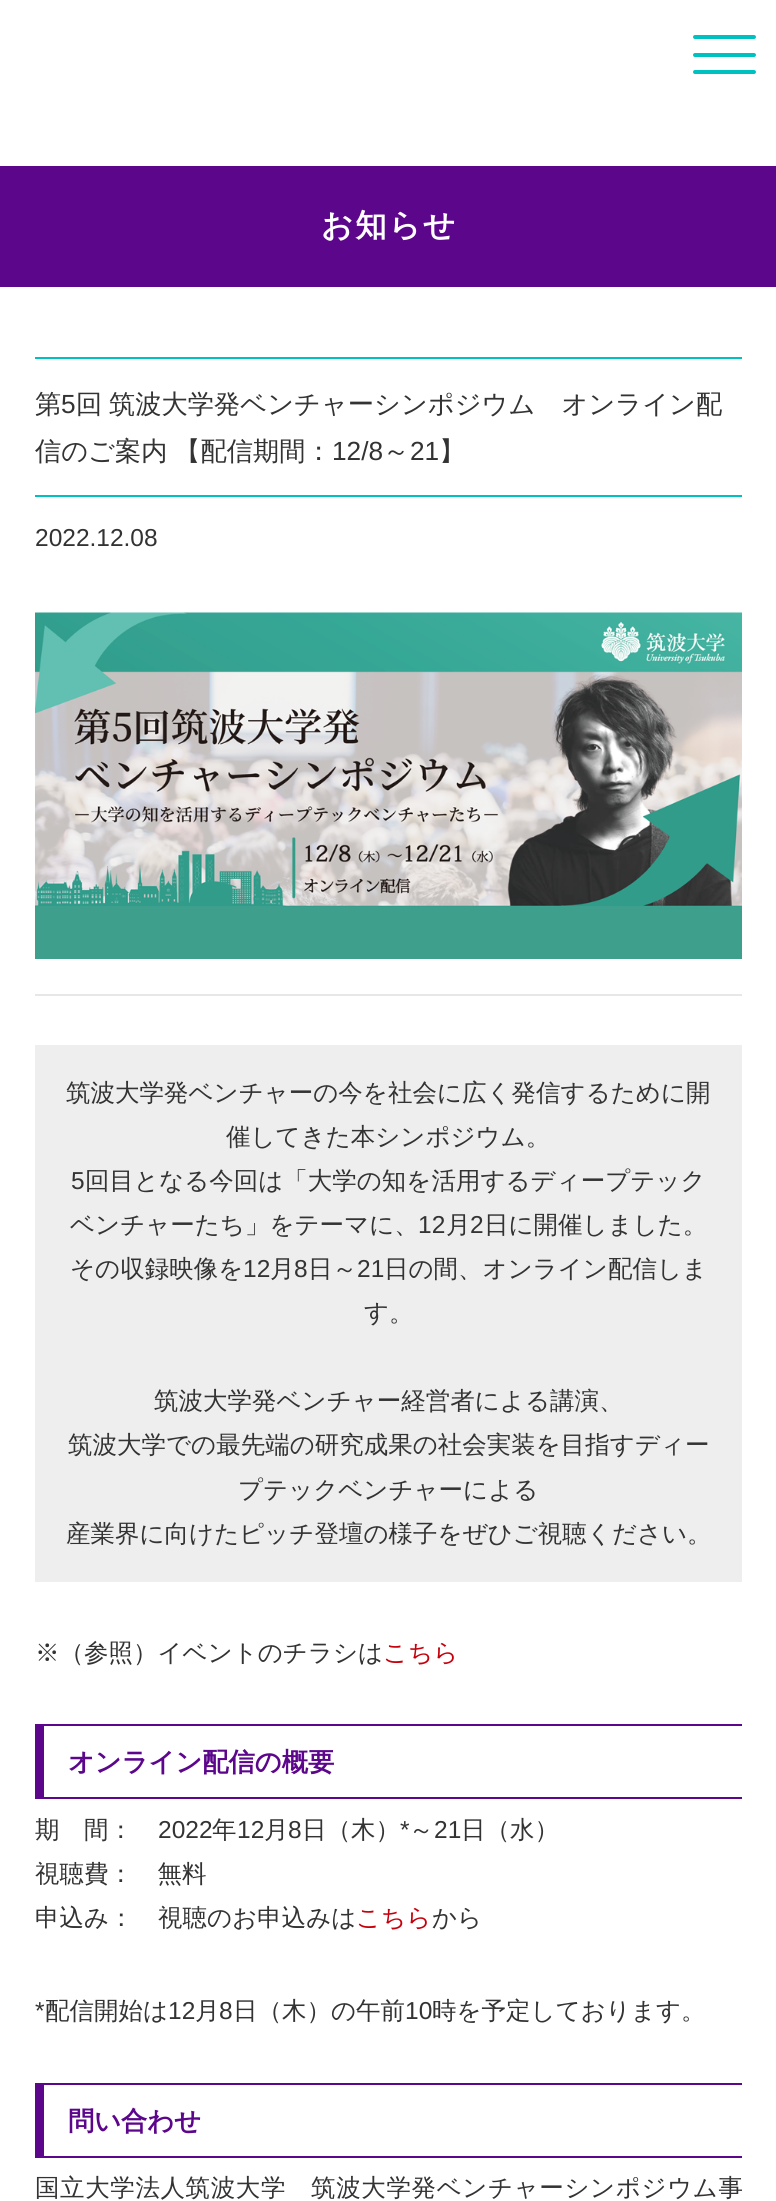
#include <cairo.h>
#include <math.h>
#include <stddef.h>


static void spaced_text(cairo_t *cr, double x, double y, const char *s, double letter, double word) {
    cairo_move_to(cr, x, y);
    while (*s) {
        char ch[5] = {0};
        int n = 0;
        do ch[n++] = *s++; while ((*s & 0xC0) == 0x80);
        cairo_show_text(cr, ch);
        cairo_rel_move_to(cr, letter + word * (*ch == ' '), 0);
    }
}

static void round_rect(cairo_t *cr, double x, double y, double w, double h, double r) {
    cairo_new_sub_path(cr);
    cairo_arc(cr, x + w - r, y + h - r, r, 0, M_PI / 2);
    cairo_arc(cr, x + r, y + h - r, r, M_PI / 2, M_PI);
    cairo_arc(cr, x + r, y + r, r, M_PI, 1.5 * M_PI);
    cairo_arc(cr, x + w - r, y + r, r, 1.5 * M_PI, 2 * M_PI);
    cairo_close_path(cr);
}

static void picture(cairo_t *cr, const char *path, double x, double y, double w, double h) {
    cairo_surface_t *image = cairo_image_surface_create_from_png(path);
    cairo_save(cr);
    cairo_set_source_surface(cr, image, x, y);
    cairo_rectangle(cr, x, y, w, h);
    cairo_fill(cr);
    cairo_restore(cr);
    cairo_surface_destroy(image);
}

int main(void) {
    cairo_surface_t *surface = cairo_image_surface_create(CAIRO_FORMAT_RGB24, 776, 2201);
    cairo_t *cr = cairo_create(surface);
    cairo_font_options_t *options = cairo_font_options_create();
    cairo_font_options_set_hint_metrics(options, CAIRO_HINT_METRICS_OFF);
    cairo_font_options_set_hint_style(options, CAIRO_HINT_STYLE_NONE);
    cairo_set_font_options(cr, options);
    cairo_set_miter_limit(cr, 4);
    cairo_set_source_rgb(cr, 1, 1, 1);
    cairo_paint(cr);
    cairo_set_source_rgb(cr, 0, 0.757, 0.757);
    round_rect(cr, 693, 53, 63, 4, 2);
    cairo_fill(cr);
    round_rect(cr, 693, 35, 63, 4, 2);
    cairo_fill(cr);
    round_rect(cr, 693, 70, 63, 4, 2);
    cairo_fill(cr);
    cairo_set_source_rgb(cr, 0.361, 0.024, 0.549);
    cairo_rectangle(cr, 0, 166, 776, 121);
    cairo_fill(cr);
    cairo_select_font_face(cr, "WenQuanYi Zen Hei", CAIRO_FONT_SLANT_NORMAL, CAIRO_FONT_WEIGHT_BOLD);
    cairo_set_font_size(cr, 31.5);
    cairo_set_source_rgb(cr, 1, 1, 1);
    spaced_text(cr, 321, 236, "お知らせ", 2, 0);
    cairo_set_source_rgb(cr, 0, 0.757, 0.757);
    cairo_rectangle(cr, 35, 357, 707, 2);
    cairo_fill(cr);
    cairo_rectangle(cr, 35, 495, 707, 2);
    cairo_fill(cr);
    cairo_select_font_face(cr, "WenQuanYi Zen Hei Medium", CAIRO_FONT_SLANT_NORMAL, CAIRO_FONT_WEIGHT_NORMAL);
    cairo_set_font_size(cr, 26.25);
    cairo_set_source_rgb(cr, 0.2, 0.2, 0.2);
    cairo_move_to(cr, 35, 413);
    cairo_show_text(cr, "第");
    cairo_select_font_face(cr, "Liberation Sans", CAIRO_FONT_SLANT_NORMAL, CAIRO_FONT_WEIGHT_NORMAL);
    cairo_move_to(cr, 61, 413);
    cairo_show_text(cr, "5");
    cairo_select_font_face(cr, "WenQuanYi Zen Hei Medium", CAIRO_FONT_SLANT_NORMAL, CAIRO_FONT_WEIGHT_NORMAL);
    spaced_text(cr, 76, 413, "回 筑波大学発ベンチャーシンポジウム　オンライン配", 0, -1);
    spaced_text(cr, 35, 460, "信のご案内 【配信期間：", 0, -1);
    cairo_select_font_face(cr, "Liberation Sans", CAIRO_FONT_SLANT_NORMAL, CAIRO_FONT_WEIGHT_NORMAL);
    cairo_move_to(cr, 332, 460);
    cairo_show_text(cr, "12/8");
    cairo_select_font_face(cr, "WenQuanYi Zen Hei Medium", CAIRO_FONT_SLANT_NORMAL, CAIRO_FONT_WEIGHT_NORMAL);
    cairo_move_to(cr, 383, 460);
    cairo_show_text(cr, "～");
    cairo_select_font_face(cr, "Liberation Sans", CAIRO_FONT_SLANT_NORMAL, CAIRO_FONT_WEIGHT_NORMAL);
    cairo_move_to(cr, 410, 460);
    cairo_show_text(cr, "21");
    cairo_select_font_face(cr, "WenQuanYi Zen Hei Medium", CAIRO_FONT_SLANT_NORMAL, CAIRO_FONT_WEIGHT_NORMAL);
    cairo_move_to(cr, 439, 460);
    cairo_show_text(cr, "】");
    cairo_select_font_face(cr, "Liberation Sans", CAIRO_FONT_SLANT_NORMAL, CAIRO_FONT_WEIGHT_NORMAL);
    cairo_set_font_size(cr, 24.5);
    cairo_move_to(cr, 35, 546);
    cairo_show_text(cr, "2022.12.08");
    picture(cr, "img1.png", 35, 612, 707, 347);
    cairo_set_source_rgb(cr, 0.906, 0.906, 0.906);
    cairo_rectangle(cr, 35, 994, 707, 2);
    cairo_fill(cr);
    cairo_set_source_rgb(cr, 0.933, 0.933, 0.933);
    cairo_rectangle(cr, 35, 1045, 707, 537);
    cairo_fill(cr);
    cairo_select_font_face(cr, "WenQuanYi Zen Hei Medium", CAIRO_FONT_SLANT_NORMAL, CAIRO_FONT_WEIGHT_NORMAL);
    cairo_set_source_rgb(cr, 0.2, 0.2, 0.2);
    cairo_move_to(cr, 66, 1101);
    cairo_show_text(cr, "筑波大学発ベンチャーの今を社会に広く発信するために開");
    cairo_move_to(cr, 226, 1145);
    cairo_show_text(cr, "催してきた本シンポジウム。");
    cairo_select_font_face(cr, "Liberation Sans", CAIRO_FONT_SLANT_NORMAL, CAIRO_FONT_WEIGHT_NORMAL);
    cairo_move_to(cr, 71, 1189);
    cairo_show_text(cr, "5");
    cairo_select_font_face(cr, "WenQuanYi Zen Hei Medium", CAIRO_FONT_SLANT_NORMAL, CAIRO_FONT_WEIGHT_NORMAL);
    cairo_move_to(cr, 85, 1189);
    cairo_show_text(cr, "回目となる今回は「大学の知を活用するディープテック");
    cairo_move_to(cr, 70, 1233);
    cairo_show_text(cr, "ベンチャーたち」をテーマに、");
    cairo_select_font_face(cr, "Liberation Sans", CAIRO_FONT_SLANT_NORMAL, CAIRO_FONT_WEIGHT_NORMAL);
    cairo_move_to(cr, 418, 1233);
    cairo_show_text(cr, "12");
    cairo_select_font_face(cr, "WenQuanYi Zen Hei Medium", CAIRO_FONT_SLANT_NORMAL, CAIRO_FONT_WEIGHT_NORMAL);
    cairo_move_to(cr, 446, 1233);
    cairo_show_text(cr, "月");
    cairo_select_font_face(cr, "Liberation Sans", CAIRO_FONT_SLANT_NORMAL, CAIRO_FONT_WEIGHT_NORMAL);
    cairo_move_to(cr, 470, 1233);
    cairo_show_text(cr, "2");
    cairo_select_font_face(cr, "WenQuanYi Zen Hei Medium", CAIRO_FONT_SLANT_NORMAL, CAIRO_FONT_WEIGHT_NORMAL);
    cairo_move_to(cr, 484, 1233);
    cairo_show_text(cr, "日に開催しました。");
    cairo_move_to(cr, 70, 1277);
    cairo_show_text(cr, "その収録映像を");
    cairo_select_font_face(cr, "Liberation Sans", CAIRO_FONT_SLANT_NORMAL, CAIRO_FONT_WEIGHT_NORMAL);
    cairo_move_to(cr, 243, 1277);
    cairo_show_text(cr, "12");
    cairo_select_font_face(cr, "WenQuanYi Zen Hei Medium", CAIRO_FONT_SLANT_NORMAL, CAIRO_FONT_WEIGHT_NORMAL);
    cairo_move_to(cr, 270, 1277);
    cairo_show_text(cr, "月");
    cairo_select_font_face(cr, "Liberation Sans", CAIRO_FONT_SLANT_NORMAL, CAIRO_FONT_WEIGHT_NORMAL);
    cairo_move_to(cr, 294, 1277);
    cairo_show_text(cr, "8");
    cairo_select_font_face(cr, "WenQuanYi Zen Hei Medium", CAIRO_FONT_SLANT_NORMAL, CAIRO_FONT_WEIGHT_NORMAL);
    cairo_move_to(cr, 308, 1277);
    cairo_show_text(cr, "日～");
    cairo_select_font_face(cr, "Liberation Sans", CAIRO_FONT_SLANT_NORMAL, CAIRO_FONT_WEIGHT_NORMAL);
    cairo_move_to(cr, 357, 1277);
    cairo_show_text(cr, "21");
    cairo_select_font_face(cr, "WenQuanYi Zen Hei Medium", CAIRO_FONT_SLANT_NORMAL, CAIRO_FONT_WEIGHT_NORMAL);
    cairo_move_to(cr, 384, 1277);
    cairo_show_text(cr, "日の間、オンライン配信しま");
    cairo_move_to(cr, 364, 1321);
    cairo_show_text(cr, "す。");
    cairo_move_to(cr, 154, 1409);
    cairo_show_text(cr, "筑波大学発ベンチャー経営者による講演、");
    cairo_move_to(cr, 68, 1453);
    cairo_show_text(cr, "筑波大学での最先端の研究成果の社会実装を目指すディー");
    cairo_move_to(cr, 238, 1498);
    cairo_show_text(cr, "プテックベンチャーによる");
    cairo_move_to(cr, 66, 1542);
    cairo_show_text(cr, "産業界に向けたピッチ登壇の様子をぜひご視聴ください。");
    cairo_move_to(cr, 35, 1661);
    cairo_show_text(cr, "※（参照）イベントのチラシは");
    cairo_set_source_rgb(cr, 0.776, 0, 0.043);
    cairo_move_to(cr, 383, 1661);
    cairo_show_text(cr, "こちら");
    cairo_set_source_rgb(cr, 0.361, 0.024, 0.549);
    cairo_rectangle(cr, 44, 1724, 698, 2);
    cairo_fill(cr);
    cairo_rectangle(cr, 44, 1797, 698, 2);
    cairo_fill(cr);
    cairo_rectangle(cr, 35, 1724, 9, 75);
    cairo_fill(cr);
    cairo_select_font_face(cr, "WenQuanYi Zen Hei", CAIRO_FONT_SLANT_NORMAL, CAIRO_FONT_WEIGHT_BOLD);
    cairo_set_font_size(cr, 26.25);
    cairo_move_to(cr, 68, 1771);
    cairo_show_text(cr, "オンライン配信の概要");
    cairo_select_font_face(cr, "WenQuanYi Zen Hei Medium", CAIRO_FONT_SLANT_NORMAL, CAIRO_FONT_WEIGHT_NORMAL);
    cairo_set_font_size(cr, 24.5);
    cairo_set_source_rgb(cr, 0.2, 0.2, 0.2);
    cairo_move_to(cr, 35, 1838);
    cairo_show_text(cr, "期　間：");
    cairo_select_font_face(cr, "Liberation Sans", CAIRO_FONT_SLANT_NORMAL, CAIRO_FONT_WEIGHT_NORMAL);
    cairo_move_to(cr, 158, 1838);
    cairo_show_text(cr, "2022");
    cairo_select_font_face(cr, "WenQuanYi Zen Hei Medium", CAIRO_FONT_SLANT_NORMAL, CAIRO_FONT_WEIGHT_NORMAL);
    cairo_move_to(cr, 212, 1838);
    cairo_show_text(cr, "年");
    cairo_select_font_face(cr, "Liberation Sans", CAIRO_FONT_SLANT_NORMAL, CAIRO_FONT_WEIGHT_NORMAL);
    cairo_move_to(cr, 237, 1838);
    cairo_show_text(cr, "12");
    cairo_select_font_face(cr, "WenQuanYi Zen Hei Medium", CAIRO_FONT_SLANT_NORMAL, CAIRO_FONT_WEIGHT_NORMAL);
    cairo_move_to(cr, 264, 1838);
    cairo_show_text(cr, "月");
    cairo_select_font_face(cr, "Liberation Sans", CAIRO_FONT_SLANT_NORMAL, CAIRO_FONT_WEIGHT_NORMAL);
    cairo_move_to(cr, 288, 1838);
    cairo_show_text(cr, "8");
    cairo_select_font_face(cr, "WenQuanYi Zen Hei Medium", CAIRO_FONT_SLANT_NORMAL, CAIRO_FONT_WEIGHT_NORMAL);
    cairo_move_to(cr, 302, 1838);
    cairo_show_text(cr, "日（木）");
    cairo_select_font_face(cr, "Liberation Sans", CAIRO_FONT_SLANT_NORMAL, CAIRO_FONT_WEIGHT_NORMAL);
    cairo_move_to(cr, 400, 1838);
    cairo_show_text(cr, "*");
    cairo_move_to(cr, 434, 1838);
    cairo_show_text(cr, "21");
    cairo_select_font_face(cr, "WenQuanYi Zen Hei Medium", CAIRO_FONT_SLANT_NORMAL, CAIRO_FONT_WEIGHT_NORMAL);
    cairo_move_to(cr, 461, 1838);
    cairo_show_text(cr, "日（水）");
    cairo_move_to(cr, 409, 1838);
    cairo_show_text(cr, "～");
    cairo_move_to(cr, 35, 1882);
    cairo_show_text(cr, "視聴費：　無料");
    cairo_move_to(cr, 35, 1926);
    cairo_show_text(cr, "申込み：　視聴のお申込みは");
    cairo_set_source_rgb(cr, 0.776, 0, 0.043);
    cairo_move_to(cr, 356, 1926);
    cairo_show_text(cr, "こちら");
    cairo_set_source_rgb(cr, 0.2, 0.2, 0.2);
    cairo_move_to(cr, 432, 1926);
    cairo_show_text(cr, "から");
    cairo_select_font_face(cr, "Liberation Sans", CAIRO_FONT_SLANT_NORMAL, CAIRO_FONT_WEIGHT_NORMAL);
    cairo_move_to(cr, 35, 2019);
    cairo_show_text(cr, "*");
    cairo_select_font_face(cr, "WenQuanYi Zen Hei Medium", CAIRO_FONT_SLANT_NORMAL, CAIRO_FONT_WEIGHT_NORMAL);
    cairo_move_to(cr, 45, 2019);
    cairo_show_text(cr, "配信開始は");
    cairo_select_font_face(cr, "Liberation Sans", CAIRO_FONT_SLANT_NORMAL, CAIRO_FONT_WEIGHT_NORMAL);
    cairo_move_to(cr, 168, 2019);
    cairo_show_text(cr, "12");
    cairo_select_font_face(cr, "WenQuanYi Zen Hei Medium", CAIRO_FONT_SLANT_NORMAL, CAIRO_FONT_WEIGHT_NORMAL);
    cairo_move_to(cr, 195, 2019);
    cairo_show_text(cr, "月");
    cairo_select_font_face(cr, "Liberation Sans", CAIRO_FONT_SLANT_NORMAL, CAIRO_FONT_WEIGHT_NORMAL);
    cairo_move_to(cr, 219, 2019);
    cairo_show_text(cr, "8");
    cairo_select_font_face(cr, "WenQuanYi Zen Hei Medium", CAIRO_FONT_SLANT_NORMAL, CAIRO_FONT_WEIGHT_NORMAL);
    cairo_move_to(cr, 233, 2019);
    cairo_show_text(cr, "日（木）の午前");
    cairo_select_font_face(cr, "Liberation Sans", CAIRO_FONT_SLANT_NORMAL, CAIRO_FONT_WEIGHT_NORMAL);
    cairo_move_to(cr, 405, 2019);
    cairo_show_text(cr, "10");
    cairo_select_font_face(cr, "WenQuanYi Zen Hei Medium", CAIRO_FONT_SLANT_NORMAL, CAIRO_FONT_WEIGHT_NORMAL);
    cairo_move_to(cr, 432, 2019);
    cairo_show_text(cr, "時を予定しております。");
    cairo_set_source_rgb(cr, 0.361, 0.024, 0.549);
    cairo_rectangle(cr, 44, 2083, 698, 2);
    cairo_fill(cr);
    cairo_rectangle(cr, 44, 2156, 698, 2);
    cairo_fill(cr);
    cairo_rectangle(cr, 35, 2083, 9, 75);
    cairo_fill(cr);
    cairo_select_font_face(cr, "WenQuanYi Zen Hei", CAIRO_FONT_SLANT_NORMAL, CAIRO_FONT_WEIGHT_BOLD);
    cairo_set_font_size(cr, 26.25);
    cairo_move_to(cr, 68, 2130);
    cairo_show_text(cr, "問い合わせ");
    cairo_select_font_face(cr, "WenQuanYi Zen Hei Medium", CAIRO_FONT_SLANT_NORMAL, CAIRO_FONT_WEIGHT_NORMAL);
    cairo_set_font_size(cr, 24.5);
    cairo_set_source_rgb(cr, 0.2, 0.2, 0.2);
    spaced_text(cr, 35, 2196, "国立大学法人筑波大学　筑波大学発ベンチャーシンポジウム事", 0.6, 0);
    cairo_surface_write_to_png(surface, "page.png");
    cairo_font_options_destroy(options);
    cairo_destroy(cr);
    cairo_surface_destroy(surface);
    return 0;
}
